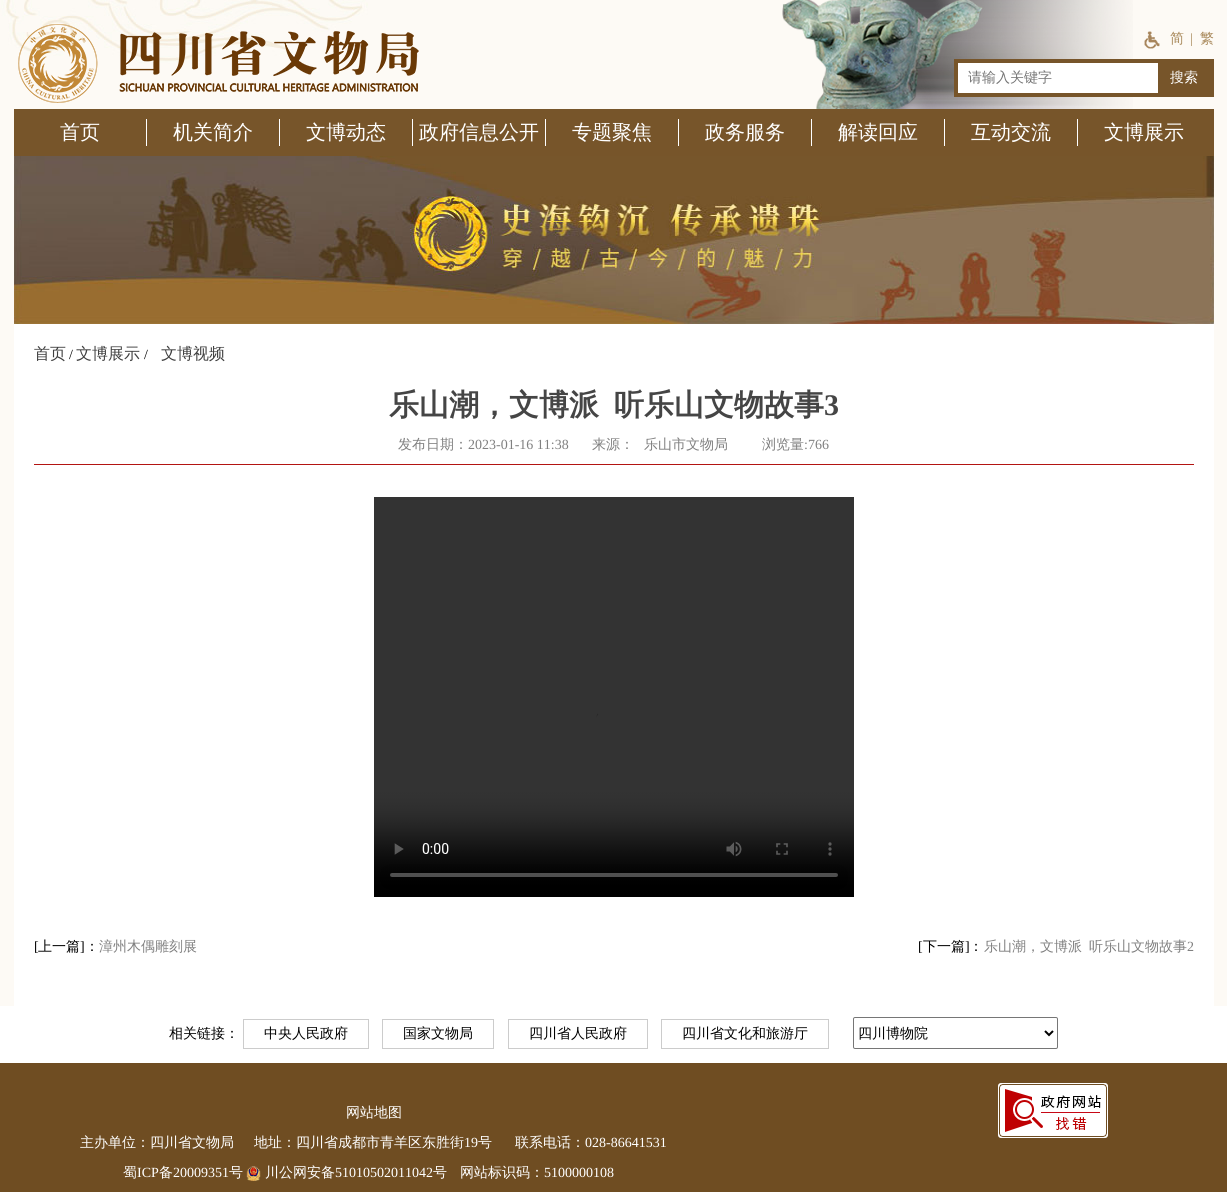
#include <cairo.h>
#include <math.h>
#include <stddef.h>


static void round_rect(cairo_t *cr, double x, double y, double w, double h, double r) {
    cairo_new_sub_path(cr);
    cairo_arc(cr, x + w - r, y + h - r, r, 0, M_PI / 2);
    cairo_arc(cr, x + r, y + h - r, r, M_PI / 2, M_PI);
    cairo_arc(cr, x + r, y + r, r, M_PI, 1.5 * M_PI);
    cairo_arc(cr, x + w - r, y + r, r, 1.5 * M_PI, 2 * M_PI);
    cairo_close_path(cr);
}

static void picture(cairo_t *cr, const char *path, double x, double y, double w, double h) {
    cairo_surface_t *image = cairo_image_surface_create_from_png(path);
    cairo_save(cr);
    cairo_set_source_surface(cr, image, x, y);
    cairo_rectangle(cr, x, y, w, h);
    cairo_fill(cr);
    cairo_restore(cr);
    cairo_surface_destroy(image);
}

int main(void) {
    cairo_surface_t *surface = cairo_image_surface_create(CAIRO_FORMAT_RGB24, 1227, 1192);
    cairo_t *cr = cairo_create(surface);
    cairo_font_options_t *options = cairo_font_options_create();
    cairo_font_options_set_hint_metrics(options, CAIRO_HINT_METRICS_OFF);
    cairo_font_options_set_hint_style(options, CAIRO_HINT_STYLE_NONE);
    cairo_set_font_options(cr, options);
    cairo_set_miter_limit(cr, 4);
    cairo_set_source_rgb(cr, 1, 1, 1);
    cairo_paint(cr);
    picture(cr, "img1.png", 0, 0, 1227, 1006);
    picture(cr, "img2.png", 782, 0, 351, 109);
    picture(cr, "img3.png", 18, 24, 401, 79);
    picture(cr, "img4.png", 1144, 31, 16, 18);
    cairo_select_font_face(cr, "WenQuanYi Zen Hei Medium", CAIRO_FONT_SLANT_NORMAL, CAIRO_FONT_WEIGHT_NORMAL);
    cairo_set_font_size(cr, 14);
    cairo_set_source_rgb(cr, 0.655, 0.529, 0.345);
    cairo_move_to(cr, 1170, 43);
    cairo_show_text(cr, "简");
    cairo_select_font_face(cr, "Liberation Serif", CAIRO_FONT_SLANT_NORMAL, CAIRO_FONT_WEIGHT_NORMAL);
    cairo_move_to(cr, 1190, 43);
    cairo_show_text(cr, "|");
    cairo_select_font_face(cr, "WenQuanYi Zen Hei Medium", CAIRO_FONT_SLANT_NORMAL, CAIRO_FONT_WEIGHT_NORMAL);
    cairo_move_to(cr, 1200, 43);
    cairo_show_text(cr, "繁");
    cairo_rectangle(cr, 956, 61, 256, 34);
    cairo_set_source_rgb(cr, 0.467, 0.333, 0.165);
    cairo_set_line_width(cr, 4);
    cairo_stroke(cr);
    cairo_set_source_rgb(cr, 1, 1, 1);
    cairo_rectangle(cr, 958, 63, 200, 30);
    cairo_fill(cr);
    cairo_set_source_rgb(cr, 0.459, 0.459, 0.459);
    cairo_move_to(cr, 968, 82);
    cairo_show_text(cr, "请输入关键字");
    cairo_set_source_rgb(cr, 0.467, 0.333, 0.165);
    cairo_rectangle(cr, 1158, 63, 52, 30);
    cairo_fill(cr);
    cairo_set_source_rgb(cr, 1, 1, 1);
    cairo_move_to(cr, 1170, 82);
    cairo_show_text(cr, "搜索");
    cairo_set_source_rgb(cr, 0.467, 0.333, 0.165);
    cairo_rectangle(cr, 14, 109, 1200, 47);
    cairo_fill(cr);
    cairo_set_source_rgb(cr, 1, 1, 1);
    cairo_rectangle(cr, 146, 119, 1, 27);
    cairo_fill(cr);
    cairo_set_font_size(cr, 20);
    cairo_move_to(cr, 60, 139);
    cairo_show_text(cr, "首页");
    cairo_rectangle(cr, 279, 119, 1, 27);
    cairo_fill(cr);
    cairo_move_to(cr, 173, 139);
    cairo_show_text(cr, "机关简介");
    cairo_rectangle(cr, 412, 119, 1, 27);
    cairo_fill(cr);
    cairo_move_to(cr, 306, 139);
    cairo_show_text(cr, "文博动态");
    cairo_rectangle(cr, 545, 119, 1, 27);
    cairo_fill(cr);
    cairo_move_to(cr, 419, 139);
    cairo_show_text(cr, "政府信息公开");
    cairo_rectangle(cr, 678, 119, 1, 27);
    cairo_fill(cr);
    cairo_move_to(cr, 572, 139);
    cairo_show_text(cr, "专题聚焦");
    cairo_rectangle(cr, 811, 119, 1, 27);
    cairo_fill(cr);
    cairo_move_to(cr, 705, 139);
    cairo_show_text(cr, "政务服务");
    cairo_rectangle(cr, 944, 119, 1, 27);
    cairo_fill(cr);
    cairo_move_to(cr, 838, 139);
    cairo_show_text(cr, "解读回应");
    cairo_rectangle(cr, 1077, 119, 1, 27);
    cairo_fill(cr);
    cairo_move_to(cr, 971, 139);
    cairo_show_text(cr, "互动交流");
    cairo_move_to(cr, 1104, 139);
    cairo_show_text(cr, "文博展示");
    picture(cr, "img5.png", 14, 156, 1200, 168);
    cairo_rectangle(cr, 14, 324, 1200, 682);
    cairo_fill(cr);
    cairo_set_font_size(cr, 16);
    cairo_set_source_rgb(cr, 0.247, 0.247, 0.247);
    cairo_move_to(cr, 34, 359);
    cairo_show_text(cr, "首页");
    cairo_select_font_face(cr, "Liberation Serif", CAIRO_FONT_SLANT_NORMAL, CAIRO_FONT_WEIGHT_NORMAL);
    cairo_set_font_size(cr, 14);
    cairo_set_source_rgb(cr, 0, 0, 0);
    cairo_move_to(cr, 69, 359);
    cairo_show_text(cr, "/");
    cairo_select_font_face(cr, "WenQuanYi Zen Hei Medium", CAIRO_FONT_SLANT_NORMAL, CAIRO_FONT_WEIGHT_NORMAL);
    cairo_set_font_size(cr, 16);
    cairo_set_source_rgb(cr, 0.247, 0.247, 0.247);
    cairo_move_to(cr, 76, 359);
    cairo_show_text(cr, "文博展示");
    cairo_select_font_face(cr, "Liberation Serif", CAIRO_FONT_SLANT_NORMAL, CAIRO_FONT_WEIGHT_NORMAL);
    cairo_set_font_size(cr, 14);
    cairo_set_source_rgb(cr, 0, 0, 0);
    cairo_move_to(cr, 144, 359);
    cairo_show_text(cr, "/");
    cairo_select_font_face(cr, "WenQuanYi Zen Hei Medium", CAIRO_FONT_SLANT_NORMAL, CAIRO_FONT_WEIGHT_NORMAL);
    cairo_set_font_size(cr, 16);
    cairo_set_source_rgb(cr, 0.247, 0.247, 0.247);
    cairo_move_to(cr, 161, 359);
    cairo_show_text(cr, "文博视频");
    cairo_select_font_face(cr, "WenQuanYi Zen Hei", CAIRO_FONT_SLANT_NORMAL, CAIRO_FONT_WEIGHT_BOLD);
    cairo_set_font_size(cr, 30);
    cairo_set_source_rgb(cr, 0.271, 0.271, 0.271);
    cairo_move_to(cr, 389, 415);
    cairo_show_text(cr, "乐山潮，文博派");
    cairo_move_to(cr, 614, 415);
    cairo_show_text(cr, "听乐山文物故事");
    cairo_select_font_face(cr, "Liberation Serif", CAIRO_FONT_SLANT_NORMAL, CAIRO_FONT_WEIGHT_BOLD);
    cairo_move_to(cr, 824, 415);
    cairo_show_text(cr, "3");
    cairo_set_source_rgb(cr, 0.702, 0.082, 0.071);
    cairo_rectangle(cr, 34, 464, 1160, 1);
    cairo_fill(cr);
    cairo_select_font_face(cr, "WenQuanYi Zen Hei Medium", CAIRO_FONT_SLANT_NORMAL, CAIRO_FONT_WEIGHT_NORMAL);
    cairo_set_font_size(cr, 14);
    cairo_set_source_rgb(cr, 0.502, 0.502, 0.502);
    cairo_move_to(cr, 398, 449);
    cairo_show_text(cr, "发布日期：");
    cairo_select_font_face(cr, "Liberation Serif", CAIRO_FONT_SLANT_NORMAL, CAIRO_FONT_WEIGHT_NORMAL);
    cairo_move_to(cr, 468, 449);
    cairo_show_text(cr, "2023-01-16 11:38");
    cairo_select_font_face(cr, "WenQuanYi Zen Hei Medium", CAIRO_FONT_SLANT_NORMAL, CAIRO_FONT_WEIGHT_NORMAL);
    cairo_move_to(cr, 592, 449);
    cairo_show_text(cr, "来源：");
    cairo_move_to(cr, 644, 449);
    cairo_show_text(cr, "乐山市文物局");
    cairo_move_to(cr, 762, 449);
    cairo_show_text(cr, "浏览量");
    cairo_select_font_face(cr, "Liberation Serif", CAIRO_FONT_SLANT_NORMAL, CAIRO_FONT_WEIGHT_NORMAL);
    cairo_move_to(cr, 804, 449);
    cairo_show_text(cr, ":766");
    picture(cr, "img6.png", 374, 497, 480, 400);
    cairo_set_source_rgb(cr, 0, 0, 0);
    cairo_move_to(cr, 34, 951);
    cairo_show_text(cr, "[");
    cairo_select_font_face(cr, "WenQuanYi Zen Hei Medium", CAIRO_FONT_SLANT_NORMAL, CAIRO_FONT_WEIGHT_NORMAL);
    cairo_move_to(cr, 38, 951);
    cairo_show_text(cr, "上一篇");
    cairo_select_font_face(cr, "Liberation Serif", CAIRO_FONT_SLANT_NORMAL, CAIRO_FONT_WEIGHT_NORMAL);
    cairo_move_to(cr, 80, 951);
    cairo_show_text(cr, "]");
    cairo_select_font_face(cr, "WenQuanYi Zen Hei Medium", CAIRO_FONT_SLANT_NORMAL, CAIRO_FONT_WEIGHT_NORMAL);
    cairo_move_to(cr, 85, 951);
    cairo_show_text(cr, "：");
    cairo_set_source_rgb(cr, 0.502, 0.502, 0.502);
    cairo_move_to(cr, 99, 951);
    cairo_show_text(cr, "漳州木偶雕刻展");
    cairo_select_font_face(cr, "Liberation Serif", CAIRO_FONT_SLANT_NORMAL, CAIRO_FONT_WEIGHT_NORMAL);
    cairo_set_source_rgb(cr, 0, 0, 0);
    cairo_move_to(cr, 918, 951);
    cairo_show_text(cr, "[");
    cairo_select_font_face(cr, "WenQuanYi Zen Hei Medium", CAIRO_FONT_SLANT_NORMAL, CAIRO_FONT_WEIGHT_NORMAL);
    cairo_move_to(cr, 923, 951);
    cairo_show_text(cr, "下一篇");
    cairo_select_font_face(cr, "Liberation Serif", CAIRO_FONT_SLANT_NORMAL, CAIRO_FONT_WEIGHT_NORMAL);
    cairo_move_to(cr, 965, 951);
    cairo_show_text(cr, "]");
    cairo_select_font_face(cr, "WenQuanYi Zen Hei Medium", CAIRO_FONT_SLANT_NORMAL, CAIRO_FONT_WEIGHT_NORMAL);
    cairo_move_to(cr, 969, 951);
    cairo_show_text(cr, "：");
    cairo_set_source_rgb(cr, 0.502, 0.502, 0.502);
    cairo_move_to(cr, 984, 951);
    cairo_show_text(cr, "乐山潮，文博派");
    cairo_move_to(cr, 1089, 951);
    cairo_show_text(cr, "听乐山文物故事");
    cairo_select_font_face(cr, "Liberation Serif", CAIRO_FONT_SLANT_NORMAL, CAIRO_FONT_WEIGHT_NORMAL);
    cairo_move_to(cr, 1187, 951);
    cairo_show_text(cr, "2");
    cairo_set_source_rgb(cr, 0.435, 0.302, 0.133);
    cairo_rectangle(cr, 0, 1063, 1227, 129);
    cairo_fill(cr);
    cairo_select_font_face(cr, "WenQuanYi Zen Hei Medium", CAIRO_FONT_SLANT_NORMAL, CAIRO_FONT_WEIGHT_NORMAL);
    cairo_set_source_rgb(cr, 0, 0, 0);
    cairo_move_to(cr, 169, 1038);
    cairo_show_text(cr, "相关链接：");
    cairo_rectangle(cr, 243.5, 1019.5, 125, 29);
    cairo_set_source_rgb(cr, 0.8, 0.8, 0.8);
    cairo_set_line_width(cr, 1);
    cairo_stroke(cr);
    cairo_set_source_rgb(cr, 0, 0, 0);
    cairo_move_to(cr, 264, 1038);
    cairo_show_text(cr, "中央人民政府");
    cairo_rectangle(cr, 382.5, 1019.5, 111, 29);
    cairo_set_source_rgb(cr, 0.8, 0.8, 0.8);
    cairo_stroke(cr);
    cairo_set_source_rgb(cr, 0, 0, 0);
    cairo_move_to(cr, 403, 1038);
    cairo_show_text(cr, "国家文物局");
    cairo_rectangle(cr, 508.5, 1019.5, 139, 29);
    cairo_set_source_rgb(cr, 0.8, 0.8, 0.8);
    cairo_stroke(cr);
    cairo_set_source_rgb(cr, 0, 0, 0);
    cairo_move_to(cr, 529, 1038);
    cairo_show_text(cr, "四川省人民政府");
    cairo_rectangle(cr, 661.5, 1019.5, 167, 29);
    cairo_set_source_rgb(cr, 0.8, 0.8, 0.8);
    cairo_stroke(cr);
    cairo_set_source_rgb(cr, 0, 0, 0);
    cairo_move_to(cr, 682, 1038);
    cairo_show_text(cr, "四川省文化和旅游厅");
    round_rect(cr, 853.5, 1017.5, 204, 31, 1.5);
    cairo_set_source_rgb(cr, 0.463, 0.463, 0.463);
    cairo_stroke(cr);
    cairo_new_path(cr);
    cairo_move_to(cr, 1045, 1031);
    cairo_line_to(cr, 1049, 1035);
    cairo_line_to(cr, 1053, 1031);
    cairo_set_source_rgb(cr, 0, 0, 0);
    cairo_set_line_width(cr, 2);
    cairo_stroke(cr);
    cairo_move_to(cr, 858, 1038);
    cairo_show_text(cr, "四川博物院");
    cairo_set_source_rgb(cr, 1, 1, 1);
    cairo_move_to(cr, 346, 1117);
    cairo_show_text(cr, "网站地图");
    cairo_move_to(cr, 80, 1147);
    cairo_show_text(cr, "主办单位：四川省文物局");
    cairo_move_to(cr, 254, 1147);
    cairo_show_text(cr, "地址：四川省成都市青羊区东胜街");
    cairo_select_font_face(cr, "Liberation Serif", CAIRO_FONT_SLANT_NORMAL, CAIRO_FONT_WEIGHT_NORMAL);
    cairo_move_to(cr, 464, 1147);
    cairo_show_text(cr, "19");
    cairo_select_font_face(cr, "WenQuanYi Zen Hei Medium", CAIRO_FONT_SLANT_NORMAL, CAIRO_FONT_WEIGHT_NORMAL);
    cairo_move_to(cr, 478, 1147);
    cairo_show_text(cr, "号");
    cairo_move_to(cr, 515, 1147);
    cairo_show_text(cr, "联系电话：");
    cairo_select_font_face(cr, "Liberation Serif", CAIRO_FONT_SLANT_NORMAL, CAIRO_FONT_WEIGHT_NORMAL);
    cairo_move_to(cr, 585, 1147);
    cairo_show_text(cr, "028-86641531");
    cairo_select_font_face(cr, "WenQuanYi Zen Hei Medium", CAIRO_FONT_SLANT_NORMAL, CAIRO_FONT_WEIGHT_NORMAL);
    cairo_move_to(cr, 123, 1177);
    cairo_show_text(cr, "蜀");
    cairo_select_font_face(cr, "Liberation Serif", CAIRO_FONT_SLANT_NORMAL, CAIRO_FONT_WEIGHT_NORMAL);
    cairo_move_to(cr, 137, 1177);
    cairo_show_text(cr, "ICP");
    cairo_select_font_face(cr, "WenQuanYi Zen Hei Medium", CAIRO_FONT_SLANT_NORMAL, CAIRO_FONT_WEIGHT_NORMAL);
    cairo_move_to(cr, 159, 1177);
    cairo_show_text(cr, "备");
    cairo_select_font_face(cr, "Liberation Serif", CAIRO_FONT_SLANT_NORMAL, CAIRO_FONT_WEIGHT_NORMAL);
    cairo_move_to(cr, 173, 1177);
    cairo_show_text(cr, "20009351");
    cairo_select_font_face(cr, "WenQuanYi Zen Hei Medium", CAIRO_FONT_SLANT_NORMAL, CAIRO_FONT_WEIGHT_NORMAL);
    cairo_move_to(cr, 229, 1177);
    cairo_show_text(cr, "号");
    picture(cr, "img7.png", 246, 1166, 15, 15);
    cairo_move_to(cr, 265, 1177);
    cairo_show_text(cr, "川公网安备");
    cairo_select_font_face(cr, "Liberation Serif", CAIRO_FONT_SLANT_NORMAL, CAIRO_FONT_WEIGHT_NORMAL);
    cairo_move_to(cr, 335, 1177);
    cairo_show_text(cr, "51010502011042");
    cairo_select_font_face(cr, "WenQuanYi Zen Hei Medium", CAIRO_FONT_SLANT_NORMAL, CAIRO_FONT_WEIGHT_NORMAL);
    cairo_move_to(cr, 433, 1177);
    cairo_show_text(cr, "号");
    cairo_move_to(cr, 460, 1177);
    cairo_show_text(cr, "网站标识码：");
    cairo_select_font_face(cr, "Liberation Serif", CAIRO_FONT_SLANT_NORMAL, CAIRO_FONT_WEIGHT_NORMAL);
    cairo_move_to(cr, 544, 1177);
    cairo_show_text(cr, "5100000108");
    picture(cr, "img8.png", 998, 1083, 110, 55);
    cairo_surface_write_to_png(surface, "page.png");
    cairo_font_options_destroy(options);
    cairo_destroy(cr);
    cairo_surface_destroy(surface);
    return 0;
}
